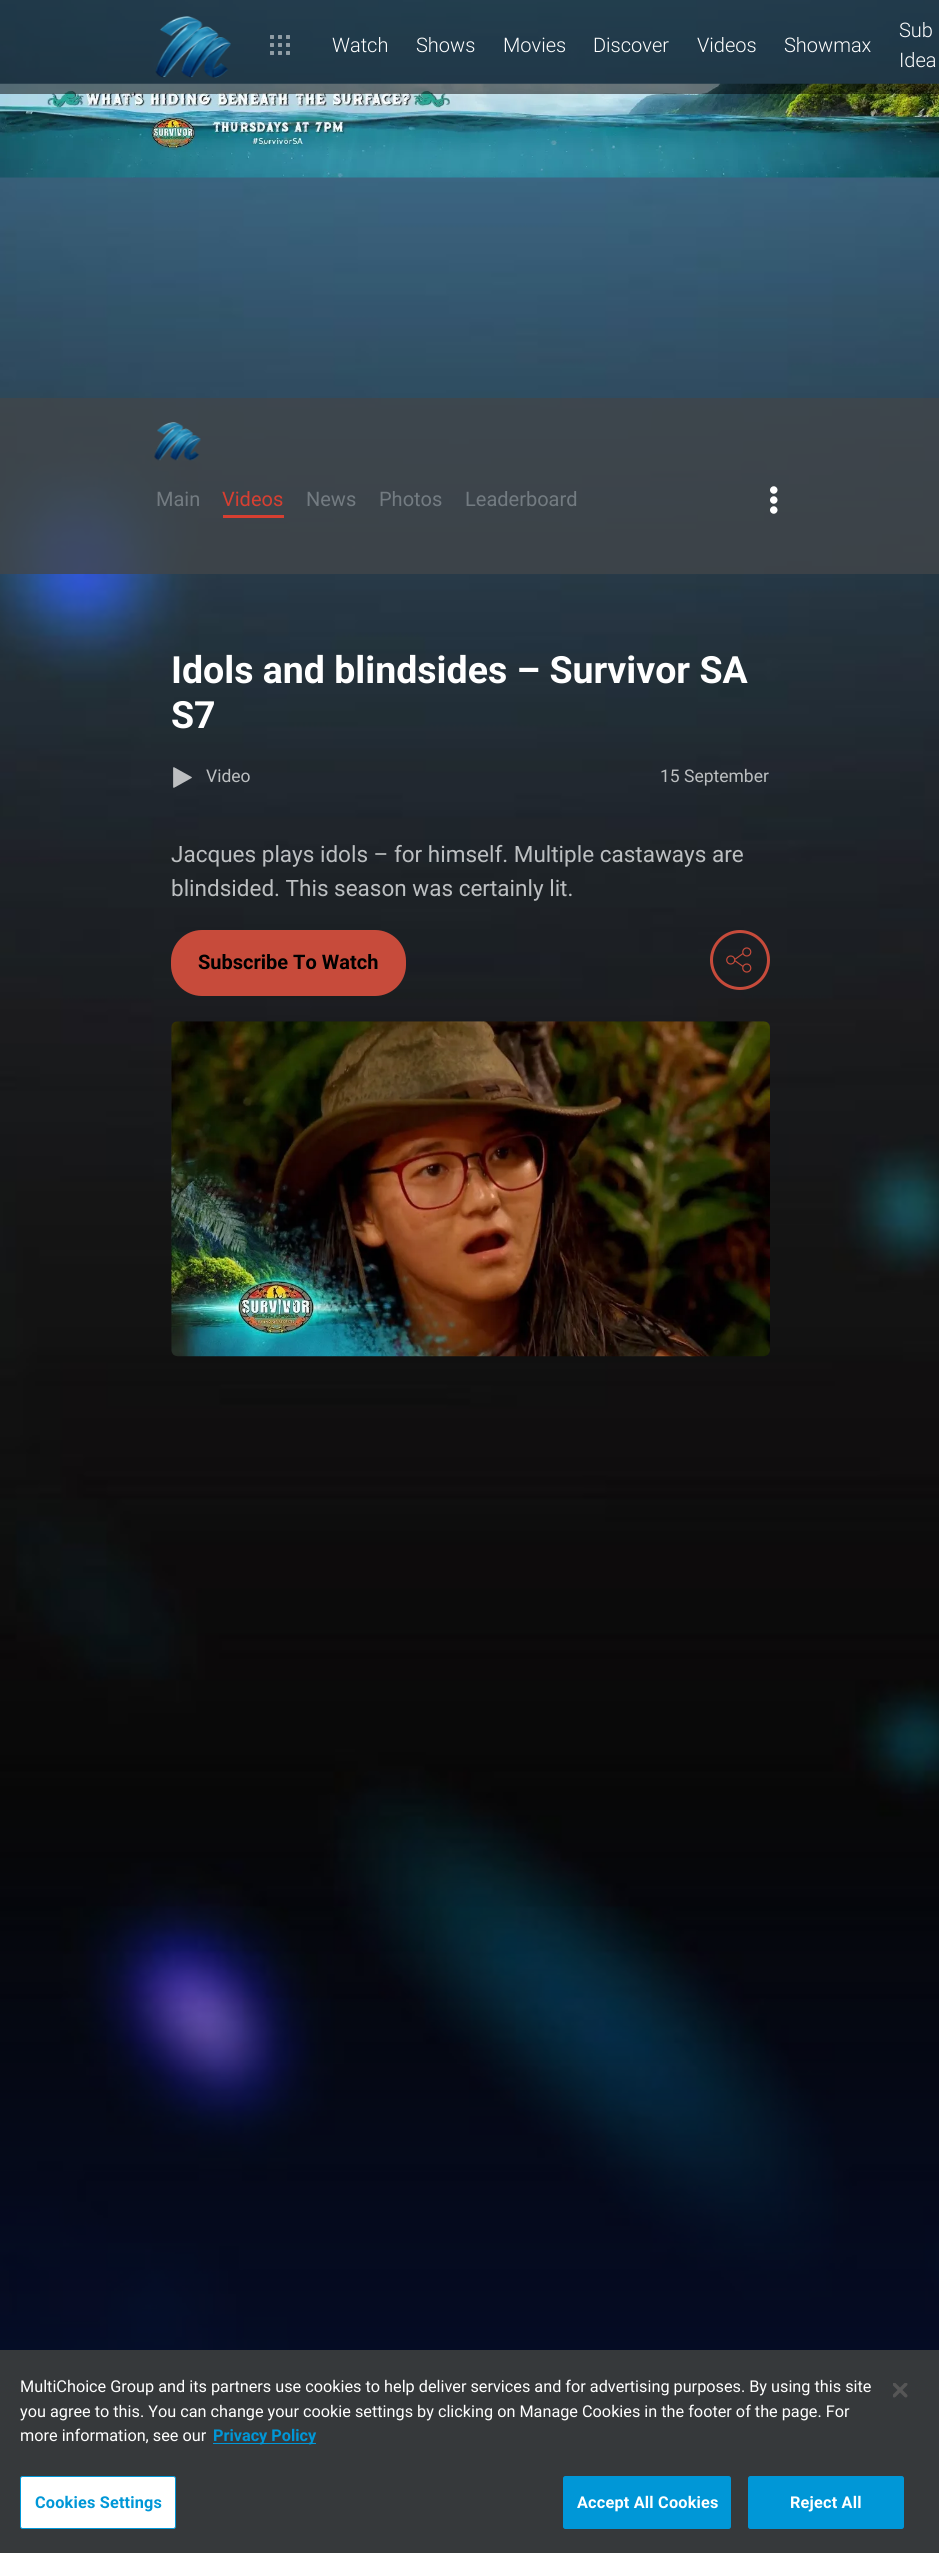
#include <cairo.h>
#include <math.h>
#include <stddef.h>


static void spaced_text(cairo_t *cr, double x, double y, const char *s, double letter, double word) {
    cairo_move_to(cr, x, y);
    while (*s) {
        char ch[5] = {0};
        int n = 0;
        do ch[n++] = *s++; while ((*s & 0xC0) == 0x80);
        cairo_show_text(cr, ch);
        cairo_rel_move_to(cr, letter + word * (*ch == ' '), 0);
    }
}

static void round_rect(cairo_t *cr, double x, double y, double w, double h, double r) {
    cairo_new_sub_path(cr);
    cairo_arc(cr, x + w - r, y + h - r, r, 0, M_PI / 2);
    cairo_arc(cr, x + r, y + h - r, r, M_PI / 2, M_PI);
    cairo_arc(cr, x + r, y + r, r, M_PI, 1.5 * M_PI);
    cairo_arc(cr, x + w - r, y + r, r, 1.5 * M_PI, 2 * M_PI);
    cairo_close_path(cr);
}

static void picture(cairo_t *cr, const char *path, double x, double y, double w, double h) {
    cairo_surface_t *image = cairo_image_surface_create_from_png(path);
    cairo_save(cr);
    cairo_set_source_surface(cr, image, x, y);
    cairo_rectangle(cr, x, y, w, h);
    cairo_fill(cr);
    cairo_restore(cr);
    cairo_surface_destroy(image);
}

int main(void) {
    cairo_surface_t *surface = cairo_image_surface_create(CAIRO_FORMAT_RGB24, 939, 2553);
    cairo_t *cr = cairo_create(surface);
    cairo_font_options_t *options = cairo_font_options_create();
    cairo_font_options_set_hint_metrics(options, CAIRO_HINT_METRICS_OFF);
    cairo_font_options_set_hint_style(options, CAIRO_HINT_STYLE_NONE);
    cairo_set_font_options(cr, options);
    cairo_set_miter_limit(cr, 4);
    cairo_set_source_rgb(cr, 0.031, 0.063, 0.192);
    cairo_paint(cr);
    picture(cr, "img1.png", 0, 0, 939, 2350);
    picture(cr, "img4.png", 0, 83, 939, 95);
    cairo_set_source_rgba(cr, 0, 0, 0, 0.5);
    cairo_rectangle(cr, 0, 0, 939, 94);
    cairo_fill(cr);
    picture(cr, "img2.png", 155, 16, 76, 62);
    picture(cr, "img3.png", 270, 35, 20, 20);
    cairo_select_font_face(cr, "Roboto Light", CAIRO_FONT_SLANT_NORMAL, CAIRO_FONT_WEIGHT_NORMAL);
    cairo_set_font_size(cr, 20);
    cairo_set_source_rgb(cr, 1, 1, 1);
    cairo_move_to(cr, 332, 52);
    cairo_show_text(cr, "Watch");
    cairo_move_to(cr, 416, 52);
    cairo_show_text(cr, "Shows");
    cairo_move_to(cr, 503, 52);
    cairo_show_text(cr, "Movies");
    cairo_move_to(cr, 593, 52);
    cairo_show_text(cr, "Discover");
    cairo_move_to(cr, 697, 52);
    cairo_show_text(cr, "Videos");
    cairo_move_to(cr, 784, 52);
    cairo_show_text(cr, "Showmax");
    cairo_move_to(cr, 899, 37);
    cairo_show_text(cr, "Sub");
    cairo_move_to(cr, 899, 67);
    cairo_show_text(cr, "Idea");
    cairo_set_source_rgba(cr, 1, 1, 1, 0.3);
    cairo_rectangle(cr, 0, 398, 939, 176);
    cairo_fill(cr);
    cairo_set_source_rgba(cr, 0.165, 0.184, 0.2, 0.7);
    cairo_rectangle(cr, 0, 398, 939, 176);
    cairo_fill(cr);
    picture(cr, "img5.png", 154, 422, 47, 39);
    cairo_select_font_face(cr, "Roboto", CAIRO_FONT_SLANT_NORMAL, CAIRO_FONT_WEIGHT_NORMAL);
    cairo_set_source_rgb(cr, 0.451, 0.482, 0.506);
    cairo_move_to(cr, 156, 506);
    cairo_show_text(cr, "Main");
    cairo_set_source_rgb(cr, 0.843, 0.247, 0.192);
    cairo_rectangle(cr, 223, 515, 61, 3);
    cairo_fill(cr);
    cairo_move_to(cr, 222, 506);
    cairo_show_text(cr, "Videos");
    cairo_set_source_rgb(cr, 0.451, 0.482, 0.506);
    cairo_move_to(cr, 306, 506);
    cairo_show_text(cr, "News");
    cairo_move_to(cr, 379, 506);
    cairo_show_text(cr, "Photos");
    cairo_move_to(cr, 465, 506);
    cairo_show_text(cr, "Leaderboard");
    picture(cr, "img6.png", 770, 486, 8, 28);
    cairo_select_font_face(cr, "Roboto", CAIRO_FONT_SLANT_NORMAL, CAIRO_FONT_WEIGHT_BOLD);
    cairo_set_font_size(cr, 37.5);
    cairo_set_source_rgb(cr, 1, 1, 1);
    cairo_move_to(cr, 171, 683);
    cairo_show_text(cr, "Idols and blindsides – Survivor SA");
    cairo_move_to(cr, 171, 728);
    cairo_show_text(cr, "S7");
    picture(cr, "img7.png", 173, 767, 19, 21);
    cairo_select_font_face(cr, "Roboto", CAIRO_FONT_SLANT_NORMAL, CAIRO_FONT_WEIGHT_NORMAL);
    cairo_set_font_size(cr, 17.5);
    cairo_set_source_rgb(cr, 0.737, 0.749, 0.757);
    cairo_move_to(cr, 206, 782);
    cairo_show_text(cr, "Video");
    cairo_move_to(cr, 660, 782);
    cairo_show_text(cr, "15 September");
    cairo_set_font_size(cr, 22.5);
    cairo_move_to(cr, 171, 862);
    cairo_show_text(cr, "Jacques plays idols – for himself. Multiple castaways are");
    cairo_move_to(cr, 171, 896);
    cairo_show_text(cr, "blindsided. This season was certainly lit.");
    cairo_set_source_rgb(cr, 0.78, 0.294, 0.231);
    round_rect(cr, 172.5, 931.5, 232, 63, 29.5);
    cairo_fill_preserve(cr);
    cairo_set_line_width(cr, 3);
    cairo_stroke(cr);
    cairo_select_font_face(cr, "Roboto", CAIRO_FONT_SLANT_NORMAL, CAIRO_FONT_WEIGHT_BOLD);
    cairo_set_font_size(cr, 20);
    cairo_set_source_rgb(cr, 0, 0, 0);
    cairo_move_to(cr, 198, 969);
    cairo_show_text(cr, "Subscribe To Watch");
    cairo_new_path(cr);
    cairo_arc(cr, 740, 960, 28.5, 0, 2 * M_PI);
    cairo_set_source_rgb(cr, 0.78, 0.294, 0.231);
    cairo_stroke(cr);
    picture(cr, "img8.png", 726, 947, 26, 26);
    picture(cr, "img9.png", 171, 1021, 599, 336);
    cairo_set_source_rgb(cr, 0.212, 0.224, 0.231);
    cairo_rectangle(cr, 0, 2350, 939, 203);
    cairo_fill(cr);
    cairo_select_font_face(cr, "Roboto", CAIRO_FONT_SLANT_NORMAL, CAIRO_FONT_WEIGHT_NORMAL);
    cairo_set_font_size(cr, 16.25);
    cairo_set_source_rgb(cr, 1, 1, 1);
    cairo_move_to(cr, 20, 2392);
    cairo_show_text(cr, "MultiChoice Group and its partners use cookies to help deliver services and for advertising purposes. By using this site");
    cairo_move_to(cr, 20, 2417);
    cairo_show_text(cr, "you agree to this. You can change your cookie settings by clicking on Manage Cookies in the footer of the page. For");
    cairo_move_to(cr, 20, 2441);
    cairo_show_text(cr, "more information, see our");
    cairo_set_source_rgb(cr, 0, 0.592, 0.843);
    cairo_rectangle(cr, 213, 2443, 103, 1);
    cairo_fill(cr);
    cairo_select_font_face(cr, "Roboto", CAIRO_FONT_SLANT_NORMAL, CAIRO_FONT_WEIGHT_BOLD);
    cairo_move_to(cr, 213, 2441);
    cairo_show_text(cr, "Privacy Policy");
    cairo_set_source_rgb(cr, 1, 1, 1);
    round_rect(cr, 20.5, 2476.5, 155, 52, 2);
    cairo_fill_preserve(cr);
    cairo_set_source_rgb(cr, 0, 0.592, 0.843);
    cairo_set_line_width(cr, 1);
    cairo_stroke(cr);
    spaced_text(cr, 35, 2508, "Cookies Settings", 0.2, 0);
    round_rect(cr, 563.5, 2476.5, 167, 52, 2);
    cairo_fill_preserve(cr);
    cairo_stroke(cr);
    cairo_set_source_rgb(cr, 1, 1, 1);
    spaced_text(cr, 577, 2508, "Accept All Cookies", 0.2, 0);
    cairo_set_source_rgb(cr, 0, 0.592, 0.843);
    round_rect(cr, 748.5, 2476.5, 155, 52, 2);
    cairo_fill_preserve(cr);
    cairo_stroke(cr);
    cairo_set_source_rgb(cr, 1, 1, 1);
    spaced_text(cr, 790, 2508, "Reject All", 0.2, 0);
    picture(cr, "img10.png", 893, 2383, 15, 15);
    cairo_surface_write_to_png(surface, "page.png");
    cairo_font_options_destroy(options);
    cairo_destroy(cr);
    cairo_surface_destroy(surface);
    return 0;
}
